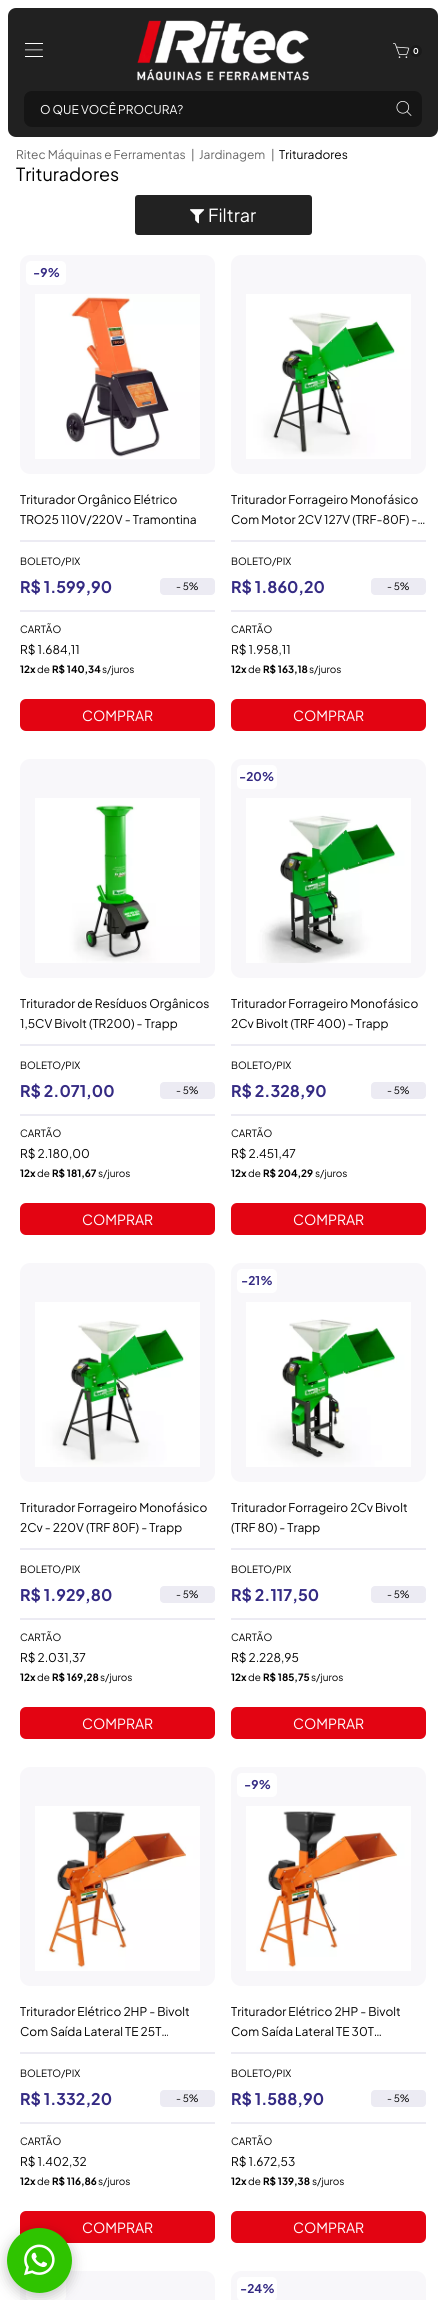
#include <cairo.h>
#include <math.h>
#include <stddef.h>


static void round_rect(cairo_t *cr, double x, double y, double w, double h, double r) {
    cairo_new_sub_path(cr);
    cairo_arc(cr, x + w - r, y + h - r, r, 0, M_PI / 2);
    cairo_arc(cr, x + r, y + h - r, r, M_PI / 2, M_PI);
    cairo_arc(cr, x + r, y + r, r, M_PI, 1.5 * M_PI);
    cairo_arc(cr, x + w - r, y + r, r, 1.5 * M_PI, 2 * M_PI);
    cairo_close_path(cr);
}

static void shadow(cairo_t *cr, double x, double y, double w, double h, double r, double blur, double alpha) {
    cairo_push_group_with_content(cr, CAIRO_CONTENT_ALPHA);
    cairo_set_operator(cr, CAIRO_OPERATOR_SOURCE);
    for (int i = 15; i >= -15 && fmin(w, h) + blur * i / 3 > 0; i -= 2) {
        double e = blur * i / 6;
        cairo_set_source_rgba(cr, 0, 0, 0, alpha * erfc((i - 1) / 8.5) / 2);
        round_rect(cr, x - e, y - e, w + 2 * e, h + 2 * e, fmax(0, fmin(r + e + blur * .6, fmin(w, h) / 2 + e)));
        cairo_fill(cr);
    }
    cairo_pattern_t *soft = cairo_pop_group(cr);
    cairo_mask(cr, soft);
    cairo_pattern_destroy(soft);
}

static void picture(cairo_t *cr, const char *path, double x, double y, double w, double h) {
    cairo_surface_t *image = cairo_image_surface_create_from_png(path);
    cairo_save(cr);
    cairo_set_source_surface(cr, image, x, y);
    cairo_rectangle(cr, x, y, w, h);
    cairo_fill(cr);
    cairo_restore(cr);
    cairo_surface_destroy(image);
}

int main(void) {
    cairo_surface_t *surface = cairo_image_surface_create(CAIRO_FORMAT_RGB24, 446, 2300);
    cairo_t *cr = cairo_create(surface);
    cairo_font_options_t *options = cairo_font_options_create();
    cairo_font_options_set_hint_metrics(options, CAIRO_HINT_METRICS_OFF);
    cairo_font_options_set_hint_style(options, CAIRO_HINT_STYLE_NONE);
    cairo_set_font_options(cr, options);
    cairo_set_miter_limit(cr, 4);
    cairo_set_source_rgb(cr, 1, 1, 1);
    cairo_paint(cr);
    cairo_set_source_rgb(cr, 0.129, 0.129, 0.129);
    round_rect(cr, 8, 8, 430, 129, 8);
    cairo_fill(cr);
    picture(cr, "img1.png", 25, 43, 18, 14);
    picture(cr, "img2.png", 137, 20, 172, 61);
    picture(cr, "img3.png", 393, 43, 17, 15);
    cairo_set_source_rgb(cr, 0.102, 0.102, 0.102);
    cairo_arc(cr, 416, 51, 6, 0, 2 * M_PI);
    cairo_fill(cr);
    cairo_select_font_face(cr, "Plus Jakarta Sans", CAIRO_FONT_SLANT_NORMAL, CAIRO_FONT_WEIGHT_BOLD);
    cairo_set_font_size(cr, 8);
    cairo_set_source_rgb(cr, 1, 1, 1);
    cairo_move_to(cr, 413, 54);
    cairo_show_text(cr, "0");
    cairo_set_source_rgb(cr, 0.102, 0.102, 0.102);
    round_rect(cr, 24, 91, 398, 36, 8);
    cairo_fill(cr);
    cairo_set_source_rgba(cr, 0, 0, 0, 0.2);
    cairo_new_path(cr);
    cairo_move_to(cr, 32, 91);
    cairo_line_to(cr, 386, 91);
    cairo_line_to(cr, 386, 127);
    cairo_line_to(cr, 32, 127);
    cairo_curve_to(cr, 27.5, 127, 24, 123.5, 24, 119);
    cairo_line_to(cr, 24, 99);
    cairo_curve_to(cr, 24, 94.5, 27.5, 91, 32, 91);
    cairo_close_path(cr);
    cairo_fill(cr);
    cairo_select_font_face(cr, "Plus Jakarta Sans", CAIRO_FONT_SLANT_NORMAL, CAIRO_FONT_WEIGHT_NORMAL);
    cairo_set_font_size(cr, 12);
    cairo_set_source_rgb(cr, 1, 1, 1);
    cairo_move_to(cr, 40, 114);
    cairo_show_text(cr, "O QUE VOCÊ PROCURA?");
    cairo_set_source_rgba(cr, 0, 0, 0, 0.2);
    cairo_new_path(cr);
    cairo_move_to(cr, 386, 91);
    cairo_line_to(cr, 414, 91);
    cairo_curve_to(cr, 418.5, 91, 422, 94.5, 422, 99);
    cairo_line_to(cr, 422, 119);
    cairo_curve_to(cr, 422, 123.5, 418.5, 127, 414, 127);
    cairo_line_to(cr, 386, 127);
    cairo_close_path(cr);
    cairo_fill(cr);
    picture(cr, "img4.png", 396, 101, 16, 15);
    cairo_set_source_rgb(cr, 0.4, 0.4, 0.4);
    cairo_move_to(cr, 16, 159);
    cairo_show_text(cr, "Ritec Máquinas e Ferramentas");
    cairo_move_to(cr, 191, 159);
    cairo_show_text(cr, "|");
    cairo_move_to(cr, 199, 159);
    cairo_show_text(cr, "Jardinagem");
    cairo_move_to(cr, 271, 159);
    cairo_show_text(cr, "|");
    cairo_set_source_rgb(cr, 0, 0, 0);
    cairo_move_to(cr, 279, 159);
    cairo_show_text(cr, "Trituradores");
    cairo_set_font_size(cr, 18);
    cairo_move_to(cr, 16, 181);
    cairo_show_text(cr, "Trituradores");
    cairo_set_source_rgb(cr, 0.133, 0.133, 0.133);
    round_rect(cr, 135, 195, 177, 40, 3);
    cairo_fill(cr);
    picture(cr, "img5.png", 190, 209, 15, 15);
    cairo_set_source_rgb(cr, 1, 1, 1);
    cairo_move_to(cr, 208, 222);
    cairo_show_text(cr, "Filtrar");
    cairo_set_source_rgb(cr, 0.969, 0.965, 0.98);
    round_rect(cr, 20, 255, 195, 219, 10);
    cairo_fill(cr);
    cairo_set_source_rgb(cr, 1, 1, 1);
    round_rect(cr, 26, 261, 40, 24, 5);
    cairo_fill(cr);
    cairo_select_font_face(cr, "Plus Jakarta Sans", CAIRO_FONT_SLANT_NORMAL, CAIRO_FONT_WEIGHT_BOLD);
    cairo_set_font_size(cr, 12);
    cairo_set_source_rgb(cr, 0.204, 0.165, 0.514);
    cairo_move_to(cr, 33, 277);
    cairo_show_text(cr, "-9%");
    picture(cr, "img6.png", 35, 294, 165, 165);
    cairo_select_font_face(cr, "Plus Jakarta Sans", CAIRO_FONT_SLANT_NORMAL, CAIRO_FONT_WEIGHT_NORMAL);
    cairo_set_source_rgb(cr, 0, 0, 0);
    cairo_move_to(cr, 20, 504);
    cairo_show_text(cr, "Triturador Orgânico Elétrico");
    cairo_move_to(cr, 20, 524);
    cairo_show_text(cr, "TRO25 110V/220V - Tramontina");
    cairo_set_source_rgb(cr, 0.922, 0.918, 0.953);
    cairo_rectangle(cr, 20, 540, 195, 2);
    cairo_fill(cr);
    cairo_set_font_size(cr, 10);
    cairo_set_source_rgb(cr, 0, 0, 0);
    cairo_move_to(cr, 20, 565);
    cairo_show_text(cr, "BOLETO/PIX");
    cairo_select_font_face(cr, "Plus Jakarta Sans", CAIRO_FONT_SLANT_NORMAL, CAIRO_FONT_WEIGHT_BOLD);
    cairo_set_font_size(cr, 16);
    cairo_set_source_rgb(cr, 0.204, 0.165, 0.514);
    cairo_move_to(cr, 20, 593);
    cairo_show_text(cr, "R$ 1.599,90");
    cairo_set_source_rgb(cr, 0.922, 0.918, 0.953);
    round_rect(cr, 160, 578, 55, 17, 4);
    cairo_fill(cr);
    cairo_select_font_face(cr, "Plus Jakarta Sans", CAIRO_FONT_SLANT_NORMAL, CAIRO_FONT_WEIGHT_NORMAL);
    cairo_set_font_size(cr, 10);
    cairo_set_source_rgb(cr, 0, 0, 0);
    cairo_move_to(cr, 176, 590);
    cairo_show_text(cr, "- 5%");
    cairo_set_source_rgb(cr, 0.922, 0.918, 0.953);
    cairo_rectangle(cr, 20, 610, 195, 2);
    cairo_fill(cr);
    cairo_set_source_rgb(cr, 0, 0, 0);
    cairo_move_to(cr, 20, 633);
    cairo_show_text(cr, "CARTÃO");
    cairo_set_font_size(cr, 12);
    cairo_move_to(cr, 20, 654);
    cairo_show_text(cr, "R$ 1.684,11");
    cairo_select_font_face(cr, "Plus Jakarta Sans", CAIRO_FONT_SLANT_NORMAL, CAIRO_FONT_WEIGHT_BOLD);
    cairo_set_font_size(cr, 10);
    cairo_move_to(cr, 20, 673);
    cairo_show_text(cr, "12x");
    cairo_select_font_face(cr, "Plus Jakarta Sans", CAIRO_FONT_SLANT_NORMAL, CAIRO_FONT_WEIGHT_NORMAL);
    cairo_move_to(cr, 37, 673);
    cairo_show_text(cr, "de");
    cairo_select_font_face(cr, "Plus Jakarta Sans", CAIRO_FONT_SLANT_NORMAL, CAIRO_FONT_WEIGHT_BOLD);
    cairo_move_to(cr, 52, 673);
    cairo_show_text(cr, "R$ 140,34");
    cairo_select_font_face(cr, "Plus Jakarta Sans", CAIRO_FONT_SLANT_NORMAL, CAIRO_FONT_WEIGHT_NORMAL);
    cairo_move_to(cr, 102, 673);
    cairo_show_text(cr, "s/juros");
    cairo_set_source_rgb(cr, 0.89, 0.016, 0.071);
    round_rect(cr, 20, 699, 195, 32, 6);
    cairo_fill(cr);
    cairo_set_font_size(cr, 14);
    cairo_set_source_rgb(cr, 1, 1, 1);
    cairo_move_to(cr, 82, 721);
    cairo_show_text(cr, "COMPRAR");
    cairo_set_source_rgb(cr, 0.969, 0.965, 0.98);
    round_rect(cr, 231, 255, 195, 219, 10);
    cairo_fill(cr);
    picture(cr, "img7.png", 246, 294, 165, 165);
    cairo_set_font_size(cr, 12);
    cairo_set_source_rgb(cr, 0, 0, 0);
    cairo_move_to(cr, 231, 504);
    cairo_show_text(cr, "Triturador Forrageiro Monofásico");
    cairo_move_to(cr, 231, 524);
    cairo_show_text(cr, "Com Motor 2CV 127V (TRF-80F) -…");
    cairo_set_source_rgb(cr, 0.922, 0.918, 0.953);
    cairo_rectangle(cr, 231, 540, 195, 2);
    cairo_fill(cr);
    cairo_set_font_size(cr, 10);
    cairo_set_source_rgb(cr, 0, 0, 0);
    cairo_move_to(cr, 231, 565);
    cairo_show_text(cr, "BOLETO/PIX");
    cairo_select_font_face(cr, "Plus Jakarta Sans", CAIRO_FONT_SLANT_NORMAL, CAIRO_FONT_WEIGHT_BOLD);
    cairo_set_font_size(cr, 16);
    cairo_set_source_rgb(cr, 0.204, 0.165, 0.514);
    cairo_move_to(cr, 231, 593);
    cairo_show_text(cr, "R$ 1.860,20");
    cairo_set_source_rgb(cr, 0.922, 0.918, 0.953);
    round_rect(cr, 371, 578, 55, 17, 4);
    cairo_fill(cr);
    cairo_select_font_face(cr, "Plus Jakarta Sans", CAIRO_FONT_SLANT_NORMAL, CAIRO_FONT_WEIGHT_NORMAL);
    cairo_set_font_size(cr, 10);
    cairo_set_source_rgb(cr, 0, 0, 0);
    cairo_move_to(cr, 387, 590);
    cairo_show_text(cr, "- 5%");
    cairo_set_source_rgb(cr, 0.922, 0.918, 0.953);
    cairo_rectangle(cr, 231, 610, 195, 2);
    cairo_fill(cr);
    cairo_set_source_rgb(cr, 0, 0, 0);
    cairo_move_to(cr, 231, 633);
    cairo_show_text(cr, "CARTÃO");
    cairo_set_font_size(cr, 12);
    cairo_move_to(cr, 231, 654);
    cairo_show_text(cr, "R$ 1.958,11");
    cairo_select_font_face(cr, "Plus Jakarta Sans", CAIRO_FONT_SLANT_NORMAL, CAIRO_FONT_WEIGHT_BOLD);
    cairo_set_font_size(cr, 10);
    cairo_move_to(cr, 231, 673);
    cairo_show_text(cr, "12x");
    cairo_select_font_face(cr, "Plus Jakarta Sans", CAIRO_FONT_SLANT_NORMAL, CAIRO_FONT_WEIGHT_NORMAL);
    cairo_move_to(cr, 248, 673);
    cairo_show_text(cr, "de");
    cairo_select_font_face(cr, "Plus Jakarta Sans", CAIRO_FONT_SLANT_NORMAL, CAIRO_FONT_WEIGHT_BOLD);
    cairo_move_to(cr, 263, 673);
    cairo_show_text(cr, "R$ 163,18");
    cairo_select_font_face(cr, "Plus Jakarta Sans", CAIRO_FONT_SLANT_NORMAL, CAIRO_FONT_WEIGHT_NORMAL);
    cairo_move_to(cr, 309, 673);
    cairo_show_text(cr, "s/juros");
    cairo_set_source_rgb(cr, 0.89, 0.016, 0.071);
    round_rect(cr, 231, 699, 195, 32, 6);
    cairo_fill(cr);
    cairo_set_font_size(cr, 14);
    cairo_set_source_rgb(cr, 1, 1, 1);
    cairo_move_to(cr, 293, 721);
    cairo_show_text(cr, "COMPRAR");
    cairo_set_source_rgb(cr, 0.969, 0.965, 0.98);
    round_rect(cr, 20, 759, 195, 219, 10);
    cairo_fill(cr);
    picture(cr, "img8.png", 35, 798, 165, 165);
    cairo_set_font_size(cr, 12);
    cairo_set_source_rgb(cr, 0, 0, 0);
    cairo_move_to(cr, 20, 1008);
    cairo_show_text(cr, "Triturador de Resíduos Orgânicos");
    cairo_move_to(cr, 20, 1028);
    cairo_show_text(cr, "1,5CV Bivolt (TR200) - Trapp");
    cairo_set_source_rgb(cr, 0.922, 0.918, 0.953);
    cairo_rectangle(cr, 20, 1044, 195, 2);
    cairo_fill(cr);
    cairo_set_font_size(cr, 10);
    cairo_set_source_rgb(cr, 0, 0, 0);
    cairo_move_to(cr, 20, 1069);
    cairo_show_text(cr, "BOLETO/PIX");
    cairo_select_font_face(cr, "Plus Jakarta Sans", CAIRO_FONT_SLANT_NORMAL, CAIRO_FONT_WEIGHT_BOLD);
    cairo_set_font_size(cr, 16);
    cairo_set_source_rgb(cr, 0.204, 0.165, 0.514);
    cairo_move_to(cr, 20, 1097);
    cairo_show_text(cr, "R$ 2.071,00");
    cairo_set_source_rgb(cr, 0.922, 0.918, 0.953);
    round_rect(cr, 160, 1082, 55, 17, 4);
    cairo_fill(cr);
    cairo_select_font_face(cr, "Plus Jakarta Sans", CAIRO_FONT_SLANT_NORMAL, CAIRO_FONT_WEIGHT_NORMAL);
    cairo_set_font_size(cr, 10);
    cairo_set_source_rgb(cr, 0, 0, 0);
    cairo_move_to(cr, 176, 1094);
    cairo_show_text(cr, "- 5%");
    cairo_set_source_rgb(cr, 0.922, 0.918, 0.953);
    cairo_rectangle(cr, 20, 1114, 195, 2);
    cairo_fill(cr);
    cairo_set_source_rgb(cr, 0, 0, 0);
    cairo_move_to(cr, 20, 1137);
    cairo_show_text(cr, "CARTÃO");
    cairo_set_font_size(cr, 12);
    cairo_move_to(cr, 20, 1158);
    cairo_show_text(cr, "R$ 2.180,00");
    cairo_select_font_face(cr, "Plus Jakarta Sans", CAIRO_FONT_SLANT_NORMAL, CAIRO_FONT_WEIGHT_BOLD);
    cairo_set_font_size(cr, 10);
    cairo_move_to(cr, 20, 1177);
    cairo_show_text(cr, "12x");
    cairo_select_font_face(cr, "Plus Jakarta Sans", CAIRO_FONT_SLANT_NORMAL, CAIRO_FONT_WEIGHT_NORMAL);
    cairo_move_to(cr, 37, 1177);
    cairo_show_text(cr, "de");
    cairo_select_font_face(cr, "Plus Jakarta Sans", CAIRO_FONT_SLANT_NORMAL, CAIRO_FONT_WEIGHT_BOLD);
    cairo_move_to(cr, 52, 1177);
    cairo_show_text(cr, "R$ 181,67");
    cairo_select_font_face(cr, "Plus Jakarta Sans", CAIRO_FONT_SLANT_NORMAL, CAIRO_FONT_WEIGHT_NORMAL);
    cairo_move_to(cr, 98, 1177);
    cairo_show_text(cr, "s/juros");
    cairo_set_source_rgb(cr, 0.89, 0.016, 0.071);
    round_rect(cr, 20, 1203, 195, 32, 6);
    cairo_fill(cr);
    cairo_set_font_size(cr, 14);
    cairo_set_source_rgb(cr, 1, 1, 1);
    cairo_move_to(cr, 82, 1225);
    cairo_show_text(cr, "COMPRAR");
    cairo_set_source_rgb(cr, 0.969, 0.965, 0.98);
    round_rect(cr, 231, 759, 195, 219, 10);
    cairo_fill(cr);
    cairo_set_source_rgb(cr, 1, 1, 1);
    round_rect(cr, 237, 765, 40, 24, 5);
    cairo_fill(cr);
    cairo_select_font_face(cr, "Plus Jakarta Sans", CAIRO_FONT_SLANT_NORMAL, CAIRO_FONT_WEIGHT_BOLD);
    cairo_set_font_size(cr, 12);
    cairo_set_source_rgb(cr, 0.204, 0.165, 0.514);
    cairo_move_to(cr, 239, 781);
    cairo_show_text(cr, "-20%");
    picture(cr, "img9.png", 246, 798, 165, 165);
    cairo_select_font_face(cr, "Plus Jakarta Sans", CAIRO_FONT_SLANT_NORMAL, CAIRO_FONT_WEIGHT_NORMAL);
    cairo_set_source_rgb(cr, 0, 0, 0);
    cairo_move_to(cr, 231, 1008);
    cairo_show_text(cr, "Triturador Forrageiro Monofásico");
    cairo_move_to(cr, 231, 1028);
    cairo_show_text(cr, "2Cv Bivolt (TRF 400) - Trapp");
    cairo_set_source_rgb(cr, 0.922, 0.918, 0.953);
    cairo_rectangle(cr, 231, 1044, 195, 2);
    cairo_fill(cr);
    cairo_set_font_size(cr, 10);
    cairo_set_source_rgb(cr, 0, 0, 0);
    cairo_move_to(cr, 231, 1069);
    cairo_show_text(cr, "BOLETO/PIX");
    cairo_select_font_face(cr, "Plus Jakarta Sans", CAIRO_FONT_SLANT_NORMAL, CAIRO_FONT_WEIGHT_BOLD);
    cairo_set_font_size(cr, 16);
    cairo_set_source_rgb(cr, 0.204, 0.165, 0.514);
    cairo_move_to(cr, 231, 1097);
    cairo_show_text(cr, "R$ 2.328,90");
    cairo_set_source_rgb(cr, 0.922, 0.918, 0.953);
    round_rect(cr, 371, 1082, 55, 17, 4);
    cairo_fill(cr);
    cairo_select_font_face(cr, "Plus Jakarta Sans", CAIRO_FONT_SLANT_NORMAL, CAIRO_FONT_WEIGHT_NORMAL);
    cairo_set_font_size(cr, 10);
    cairo_set_source_rgb(cr, 0, 0, 0);
    cairo_move_to(cr, 387, 1094);
    cairo_show_text(cr, "- 5%");
    cairo_set_source_rgb(cr, 0.922, 0.918, 0.953);
    cairo_rectangle(cr, 231, 1114, 195, 2);
    cairo_fill(cr);
    cairo_set_source_rgb(cr, 0, 0, 0);
    cairo_move_to(cr, 231, 1137);
    cairo_show_text(cr, "CARTÃO");
    cairo_set_font_size(cr, 12);
    cairo_move_to(cr, 231, 1158);
    cairo_show_text(cr, "R$ 2.451,47");
    cairo_select_font_face(cr, "Plus Jakarta Sans", CAIRO_FONT_SLANT_NORMAL, CAIRO_FONT_WEIGHT_BOLD);
    cairo_set_font_size(cr, 10);
    cairo_move_to(cr, 231, 1177);
    cairo_show_text(cr, "12x");
    cairo_select_font_face(cr, "Plus Jakarta Sans", CAIRO_FONT_SLANT_NORMAL, CAIRO_FONT_WEIGHT_NORMAL);
    cairo_move_to(cr, 248, 1177);
    cairo_show_text(cr, "de");
    cairo_select_font_face(cr, "Plus Jakarta Sans", CAIRO_FONT_SLANT_NORMAL, CAIRO_FONT_WEIGHT_BOLD);
    cairo_move_to(cr, 263, 1177);
    cairo_show_text(cr, "R$ 204,29");
    cairo_select_font_face(cr, "Plus Jakarta Sans", CAIRO_FONT_SLANT_NORMAL, CAIRO_FONT_WEIGHT_NORMAL);
    cairo_move_to(cr, 315, 1177);
    cairo_show_text(cr, "s/juros");
    cairo_set_source_rgb(cr, 0.89, 0.016, 0.071);
    round_rect(cr, 231, 1203, 195, 32, 6);
    cairo_fill(cr);
    cairo_set_font_size(cr, 14);
    cairo_set_source_rgb(cr, 1, 1, 1);
    cairo_move_to(cr, 293, 1225);
    cairo_show_text(cr, "COMPRAR");
    cairo_set_source_rgb(cr, 0.969, 0.965, 0.98);
    round_rect(cr, 20, 1263, 195, 219, 10);
    cairo_fill(cr);
    picture(cr, "img10.png", 35, 1302, 165, 165);
    cairo_set_font_size(cr, 12);
    cairo_set_source_rgb(cr, 0, 0, 0);
    cairo_move_to(cr, 20, 1512);
    cairo_show_text(cr, "Triturador Forrageiro Monofásico");
    cairo_move_to(cr, 20, 1532);
    cairo_show_text(cr, "2Cv - 220V (TRF 80F) - Trapp");
    cairo_set_source_rgb(cr, 0.922, 0.918, 0.953);
    cairo_rectangle(cr, 20, 1548, 195, 2);
    cairo_fill(cr);
    cairo_set_font_size(cr, 10);
    cairo_set_source_rgb(cr, 0, 0, 0);
    cairo_move_to(cr, 20, 1573);
    cairo_show_text(cr, "BOLETO/PIX");
    cairo_select_font_face(cr, "Plus Jakarta Sans", CAIRO_FONT_SLANT_NORMAL, CAIRO_FONT_WEIGHT_BOLD);
    cairo_set_font_size(cr, 16);
    cairo_set_source_rgb(cr, 0.204, 0.165, 0.514);
    cairo_move_to(cr, 20, 1601);
    cairo_show_text(cr, "R$ 1.929,80");
    cairo_set_source_rgb(cr, 0.922, 0.918, 0.953);
    round_rect(cr, 160, 1586, 55, 17, 4);
    cairo_fill(cr);
    cairo_select_font_face(cr, "Plus Jakarta Sans", CAIRO_FONT_SLANT_NORMAL, CAIRO_FONT_WEIGHT_NORMAL);
    cairo_set_font_size(cr, 10);
    cairo_set_source_rgb(cr, 0, 0, 0);
    cairo_move_to(cr, 176, 1598);
    cairo_show_text(cr, "- 5%");
    cairo_set_source_rgb(cr, 0.922, 0.918, 0.953);
    cairo_rectangle(cr, 20, 1618, 195, 2);
    cairo_fill(cr);
    cairo_set_source_rgb(cr, 0, 0, 0);
    cairo_move_to(cr, 20, 1641);
    cairo_show_text(cr, "CARTÃO");
    cairo_set_font_size(cr, 12);
    cairo_move_to(cr, 20, 1662);
    cairo_show_text(cr, "R$ 2.031,37");
    cairo_select_font_face(cr, "Plus Jakarta Sans", CAIRO_FONT_SLANT_NORMAL, CAIRO_FONT_WEIGHT_BOLD);
    cairo_set_font_size(cr, 10);
    cairo_move_to(cr, 20, 1681);
    cairo_show_text(cr, "12x");
    cairo_select_font_face(cr, "Plus Jakarta Sans", CAIRO_FONT_SLANT_NORMAL, CAIRO_FONT_WEIGHT_NORMAL);
    cairo_move_to(cr, 37, 1681);
    cairo_show_text(cr, "de");
    cairo_select_font_face(cr, "Plus Jakarta Sans", CAIRO_FONT_SLANT_NORMAL, CAIRO_FONT_WEIGHT_BOLD);
    cairo_move_to(cr, 52, 1681);
    cairo_show_text(cr, "R$ 169,28");
    cairo_select_font_face(cr, "Plus Jakarta Sans", CAIRO_FONT_SLANT_NORMAL, CAIRO_FONT_WEIGHT_NORMAL);
    cairo_move_to(cr, 100, 1681);
    cairo_show_text(cr, "s/juros");
    cairo_set_source_rgb(cr, 0.89, 0.016, 0.071);
    round_rect(cr, 20, 1707, 195, 32, 6);
    cairo_fill(cr);
    cairo_set_font_size(cr, 14);
    cairo_set_source_rgb(cr, 1, 1, 1);
    cairo_move_to(cr, 82, 1729);
    cairo_show_text(cr, "COMPRAR");
    cairo_set_source_rgb(cr, 0.969, 0.965, 0.98);
    round_rect(cr, 231, 1263, 195, 219, 10);
    cairo_fill(cr);
    cairo_set_source_rgb(cr, 1, 1, 1);
    round_rect(cr, 237, 1269, 40, 24, 5);
    cairo_fill(cr);
    cairo_select_font_face(cr, "Plus Jakarta Sans", CAIRO_FONT_SLANT_NORMAL, CAIRO_FONT_WEIGHT_BOLD);
    cairo_set_font_size(cr, 12);
    cairo_set_source_rgb(cr, 0.204, 0.165, 0.514);
    cairo_move_to(cr, 241, 1285);
    cairo_show_text(cr, "-21%");
    picture(cr, "img11.png", 246, 1302, 165, 165);
    cairo_select_font_face(cr, "Plus Jakarta Sans", CAIRO_FONT_SLANT_NORMAL, CAIRO_FONT_WEIGHT_NORMAL);
    cairo_set_source_rgb(cr, 0, 0, 0);
    cairo_move_to(cr, 231, 1512);
    cairo_show_text(cr, "Triturador Forrageiro 2Cv Bivolt");
    cairo_move_to(cr, 231, 1532);
    cairo_show_text(cr, "(TRF 80) - Trapp");
    cairo_set_source_rgb(cr, 0.922, 0.918, 0.953);
    cairo_rectangle(cr, 231, 1548, 195, 2);
    cairo_fill(cr);
    cairo_set_font_size(cr, 10);
    cairo_set_source_rgb(cr, 0, 0, 0);
    cairo_move_to(cr, 231, 1573);
    cairo_show_text(cr, "BOLETO/PIX");
    cairo_select_font_face(cr, "Plus Jakarta Sans", CAIRO_FONT_SLANT_NORMAL, CAIRO_FONT_WEIGHT_BOLD);
    cairo_set_font_size(cr, 16);
    cairo_set_source_rgb(cr, 0.204, 0.165, 0.514);
    cairo_move_to(cr, 231, 1601);
    cairo_show_text(cr, "R$ 2.117,50");
    cairo_set_source_rgb(cr, 0.922, 0.918, 0.953);
    round_rect(cr, 371, 1586, 55, 17, 4);
    cairo_fill(cr);
    cairo_select_font_face(cr, "Plus Jakarta Sans", CAIRO_FONT_SLANT_NORMAL, CAIRO_FONT_WEIGHT_NORMAL);
    cairo_set_font_size(cr, 10);
    cairo_set_source_rgb(cr, 0, 0, 0);
    cairo_move_to(cr, 387, 1598);
    cairo_show_text(cr, "- 5%");
    cairo_set_source_rgb(cr, 0.922, 0.918, 0.953);
    cairo_rectangle(cr, 231, 1618, 195, 2);
    cairo_fill(cr);
    cairo_set_source_rgb(cr, 0, 0, 0);
    cairo_move_to(cr, 231, 1641);
    cairo_show_text(cr, "CARTÃO");
    cairo_set_font_size(cr, 12);
    cairo_move_to(cr, 231, 1662);
    cairo_show_text(cr, "R$ 2.228,95");
    cairo_select_font_face(cr, "Plus Jakarta Sans", CAIRO_FONT_SLANT_NORMAL, CAIRO_FONT_WEIGHT_BOLD);
    cairo_set_font_size(cr, 10);
    cairo_move_to(cr, 231, 1681);
    cairo_show_text(cr, "12x");
    cairo_select_font_face(cr, "Plus Jakarta Sans", CAIRO_FONT_SLANT_NORMAL, CAIRO_FONT_WEIGHT_NORMAL);
    cairo_move_to(cr, 248, 1681);
    cairo_show_text(cr, "de");
    cairo_select_font_face(cr, "Plus Jakarta Sans", CAIRO_FONT_SLANT_NORMAL, CAIRO_FONT_WEIGHT_BOLD);
    cairo_move_to(cr, 263, 1681);
    cairo_show_text(cr, "R$ 185,75");
    cairo_select_font_face(cr, "Plus Jakarta Sans", CAIRO_FONT_SLANT_NORMAL, CAIRO_FONT_WEIGHT_NORMAL);
    cairo_move_to(cr, 311, 1681);
    cairo_show_text(cr, "s/juros");
    cairo_set_source_rgb(cr, 0.89, 0.016, 0.071);
    round_rect(cr, 231, 1707, 195, 32, 6);
    cairo_fill(cr);
    cairo_set_font_size(cr, 14);
    cairo_set_source_rgb(cr, 1, 1, 1);
    cairo_move_to(cr, 293, 1729);
    cairo_show_text(cr, "COMPRAR");
    cairo_set_source_rgb(cr, 0.969, 0.965, 0.98);
    round_rect(cr, 20, 1767, 195, 219, 10);
    cairo_fill(cr);
    picture(cr, "img12.png", 35, 1806, 165, 165);
    cairo_set_font_size(cr, 12);
    cairo_set_source_rgb(cr, 0, 0, 0);
    cairo_move_to(cr, 20, 2016);
    cairo_show_text(cr, "Triturador Elétrico 2HP - Bivolt");
    cairo_move_to(cr, 20, 2036);
    cairo_show_text(cr, "Com Saída Lateral TE 25T…");
    cairo_set_source_rgb(cr, 0.922, 0.918, 0.953);
    cairo_rectangle(cr, 20, 2052, 195, 2);
    cairo_fill(cr);
    cairo_set_font_size(cr, 10);
    cairo_set_source_rgb(cr, 0, 0, 0);
    cairo_move_to(cr, 20, 2077);
    cairo_show_text(cr, "BOLETO/PIX");
    cairo_select_font_face(cr, "Plus Jakarta Sans", CAIRO_FONT_SLANT_NORMAL, CAIRO_FONT_WEIGHT_BOLD);
    cairo_set_font_size(cr, 16);
    cairo_set_source_rgb(cr, 0.204, 0.165, 0.514);
    cairo_move_to(cr, 20, 2105);
    cairo_show_text(cr, "R$ 1.332,20");
    cairo_set_source_rgb(cr, 0.922, 0.918, 0.953);
    round_rect(cr, 160, 2090, 55, 17, 4);
    cairo_fill(cr);
    cairo_select_font_face(cr, "Plus Jakarta Sans", CAIRO_FONT_SLANT_NORMAL, CAIRO_FONT_WEIGHT_NORMAL);
    cairo_set_font_size(cr, 10);
    cairo_set_source_rgb(cr, 0, 0, 0);
    cairo_move_to(cr, 176, 2102);
    cairo_show_text(cr, "- 5%");
    cairo_set_source_rgb(cr, 0.922, 0.918, 0.953);
    cairo_rectangle(cr, 20, 2122, 195, 2);
    cairo_fill(cr);
    cairo_set_source_rgb(cr, 0, 0, 0);
    cairo_move_to(cr, 20, 2145);
    cairo_show_text(cr, "CARTÃO");
    cairo_set_font_size(cr, 12);
    cairo_move_to(cr, 20, 2166);
    cairo_show_text(cr, "R$ 1.402,32");
    cairo_select_font_face(cr, "Plus Jakarta Sans", CAIRO_FONT_SLANT_NORMAL, CAIRO_FONT_WEIGHT_BOLD);
    cairo_set_font_size(cr, 10);
    cairo_move_to(cr, 20, 2185);
    cairo_show_text(cr, "12x");
    cairo_select_font_face(cr, "Plus Jakarta Sans", CAIRO_FONT_SLANT_NORMAL, CAIRO_FONT_WEIGHT_NORMAL);
    cairo_move_to(cr, 37, 2185);
    cairo_show_text(cr, "de");
    cairo_select_font_face(cr, "Plus Jakarta Sans", CAIRO_FONT_SLANT_NORMAL, CAIRO_FONT_WEIGHT_BOLD);
    cairo_move_to(cr, 52, 2185);
    cairo_show_text(cr, "R$ 116,86");
    cairo_select_font_face(cr, "Plus Jakarta Sans", CAIRO_FONT_SLANT_NORMAL, CAIRO_FONT_WEIGHT_NORMAL);
    cairo_move_to(cr, 98, 2185);
    cairo_show_text(cr, "s/juros");
    cairo_set_source_rgb(cr, 0.89, 0.016, 0.071);
    round_rect(cr, 20, 2211, 195, 32, 6);
    cairo_fill(cr);
    cairo_set_font_size(cr, 14);
    cairo_set_source_rgb(cr, 1, 1, 1);
    cairo_move_to(cr, 82, 2233);
    cairo_show_text(cr, "COMPRAR");
    cairo_set_source_rgb(cr, 0.969, 0.965, 0.98);
    round_rect(cr, 231, 1767, 195, 219, 10);
    cairo_fill(cr);
    cairo_set_source_rgb(cr, 1, 1, 1);
    round_rect(cr, 237, 1773, 40, 24, 5);
    cairo_fill(cr);
    cairo_select_font_face(cr, "Plus Jakarta Sans", CAIRO_FONT_SLANT_NORMAL, CAIRO_FONT_WEIGHT_BOLD);
    cairo_set_font_size(cr, 12);
    cairo_set_source_rgb(cr, 0.204, 0.165, 0.514);
    cairo_move_to(cr, 244, 1789);
    cairo_show_text(cr, "-9%");
    picture(cr, "img13.png", 246, 1806, 165, 165);
    cairo_select_font_face(cr, "Plus Jakarta Sans", CAIRO_FONT_SLANT_NORMAL, CAIRO_FONT_WEIGHT_NORMAL);
    cairo_set_source_rgb(cr, 0, 0, 0);
    cairo_move_to(cr, 231, 2016);
    cairo_show_text(cr, "Triturador Elétrico 2HP - Bivolt");
    cairo_move_to(cr, 231, 2036);
    cairo_show_text(cr, "Com Saída Lateral TE 30T…");
    cairo_set_source_rgb(cr, 0.922, 0.918, 0.953);
    cairo_rectangle(cr, 231, 2052, 195, 2);
    cairo_fill(cr);
    cairo_set_font_size(cr, 10);
    cairo_set_source_rgb(cr, 0, 0, 0);
    cairo_move_to(cr, 231, 2077);
    cairo_show_text(cr, "BOLETO/PIX");
    cairo_select_font_face(cr, "Plus Jakarta Sans", CAIRO_FONT_SLANT_NORMAL, CAIRO_FONT_WEIGHT_BOLD);
    cairo_set_font_size(cr, 16);
    cairo_set_source_rgb(cr, 0.204, 0.165, 0.514);
    cairo_move_to(cr, 231, 2105);
    cairo_show_text(cr, "R$ 1.588,90");
    cairo_set_source_rgb(cr, 0.922, 0.918, 0.953);
    round_rect(cr, 371, 2090, 55, 17, 4);
    cairo_fill(cr);
    cairo_select_font_face(cr, "Plus Jakarta Sans", CAIRO_FONT_SLANT_NORMAL, CAIRO_FONT_WEIGHT_NORMAL);
    cairo_set_font_size(cr, 10);
    cairo_set_source_rgb(cr, 0, 0, 0);
    cairo_move_to(cr, 387, 2102);
    cairo_show_text(cr, "- 5%");
    cairo_set_source_rgb(cr, 0.922, 0.918, 0.953);
    cairo_rectangle(cr, 231, 2122, 195, 2);
    cairo_fill(cr);
    cairo_set_source_rgb(cr, 0, 0, 0);
    cairo_move_to(cr, 231, 2145);
    cairo_show_text(cr, "CARTÃO");
    cairo_set_font_size(cr, 12);
    cairo_move_to(cr, 231, 2166);
    cairo_show_text(cr, "R$ 1.672,53");
    cairo_select_font_face(cr, "Plus Jakarta Sans", CAIRO_FONT_SLANT_NORMAL, CAIRO_FONT_WEIGHT_BOLD);
    cairo_set_font_size(cr, 10);
    cairo_move_to(cr, 231, 2185);
    cairo_show_text(cr, "12x");
    cairo_select_font_face(cr, "Plus Jakarta Sans", CAIRO_FONT_SLANT_NORMAL, CAIRO_FONT_WEIGHT_NORMAL);
    cairo_move_to(cr, 248, 2185);
    cairo_show_text(cr, "de");
    cairo_select_font_face(cr, "Plus Jakarta Sans", CAIRO_FONT_SLANT_NORMAL, CAIRO_FONT_WEIGHT_BOLD);
    cairo_move_to(cr, 263, 2185);
    cairo_show_text(cr, "R$ 139,38");
    cairo_select_font_face(cr, "Plus Jakarta Sans", CAIRO_FONT_SLANT_NORMAL, CAIRO_FONT_WEIGHT_NORMAL);
    cairo_move_to(cr, 312, 2185);
    cairo_show_text(cr, "s/juros");
    cairo_set_source_rgb(cr, 0.89, 0.016, 0.071);
    round_rect(cr, 231, 2211, 195, 32, 6);
    cairo_fill(cr);
    cairo_set_font_size(cr, 14);
    cairo_set_source_rgb(cr, 1, 1, 1);
    cairo_move_to(cr, 293, 2233);
    cairo_show_text(cr, "COMPRAR");
    cairo_set_source_rgb(cr, 0.969, 0.965, 0.98);
    round_rect(cr, 20, 2271, 195, 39, 10);
    cairo_fill(cr);
    cairo_set_source_rgb(cr, 1, 1, 1);
    round_rect(cr, 26, 2277, 40, 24, 5);
    cairo_fill(cr);
    cairo_set_source_rgb(cr, 0.969, 0.965, 0.98);
    round_rect(cr, 231, 2271, 195, 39, 10);
    cairo_fill(cr);
    cairo_set_source_rgb(cr, 1, 1, 1);
    round_rect(cr, 237, 2277, 40, 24, 5);
    cairo_fill(cr);
    cairo_select_font_face(cr, "Plus Jakarta Sans", CAIRO_FONT_SLANT_NORMAL, CAIRO_FONT_WEIGHT_BOLD);
    cairo_set_font_size(cr, 12);
    cairo_set_source_rgb(cr, 0.204, 0.165, 0.514);
    cairo_move_to(cr, 240, 2293);
    cairo_show_text(cr, "-24%");
    cairo_set_source_rgb(cr, 0.184, 0.769, 0);
    cairo_new_path(cr);
    cairo_arc(cr, 39.5, 2260.5, 32.5, 0, 2 * M_PI);
    cairo_fill(cr);
    cairo_save(cr);
    cairo_set_fill_rule(cr, CAIRO_FILL_RULE_EVEN_ODD);
    cairo_new_path(cr);
    cairo_move_to(cr, 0, 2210);
    cairo_line_to(cr, 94, 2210);
    cairo_line_to(cr, 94, 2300);
    cairo_line_to(cr, 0, 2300);
    cairo_close_path(cr);
    cairo_move_to(cr, 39.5, 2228);
    cairo_curve_to(cr, 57.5, 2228, 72, 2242.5, 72, 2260.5);
    cairo_curve_to(cr, 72, 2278.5, 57.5, 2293, 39.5, 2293);
    cairo_curve_to(cr, 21.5, 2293, 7, 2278.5, 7, 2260.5);
    cairo_curve_to(cr, 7, 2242.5, 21.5, 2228, 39.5, 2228);
    cairo_close_path(cr);
    cairo_clip(cr);
    cairo_set_source_rgb(cr, 0, 0, 0);
    shadow(cr, 7, 2232, 65, 65, 32.5, 7, 0.24);
    cairo_restore(cr);
    picture(cr, "img14.png", 24, 2244, 31, 32);
    cairo_surface_write_to_png(surface, "page.png");
    cairo_font_options_destroy(options);
    cairo_destroy(cr);
    cairo_surface_destroy(surface);
    return 0;
}
